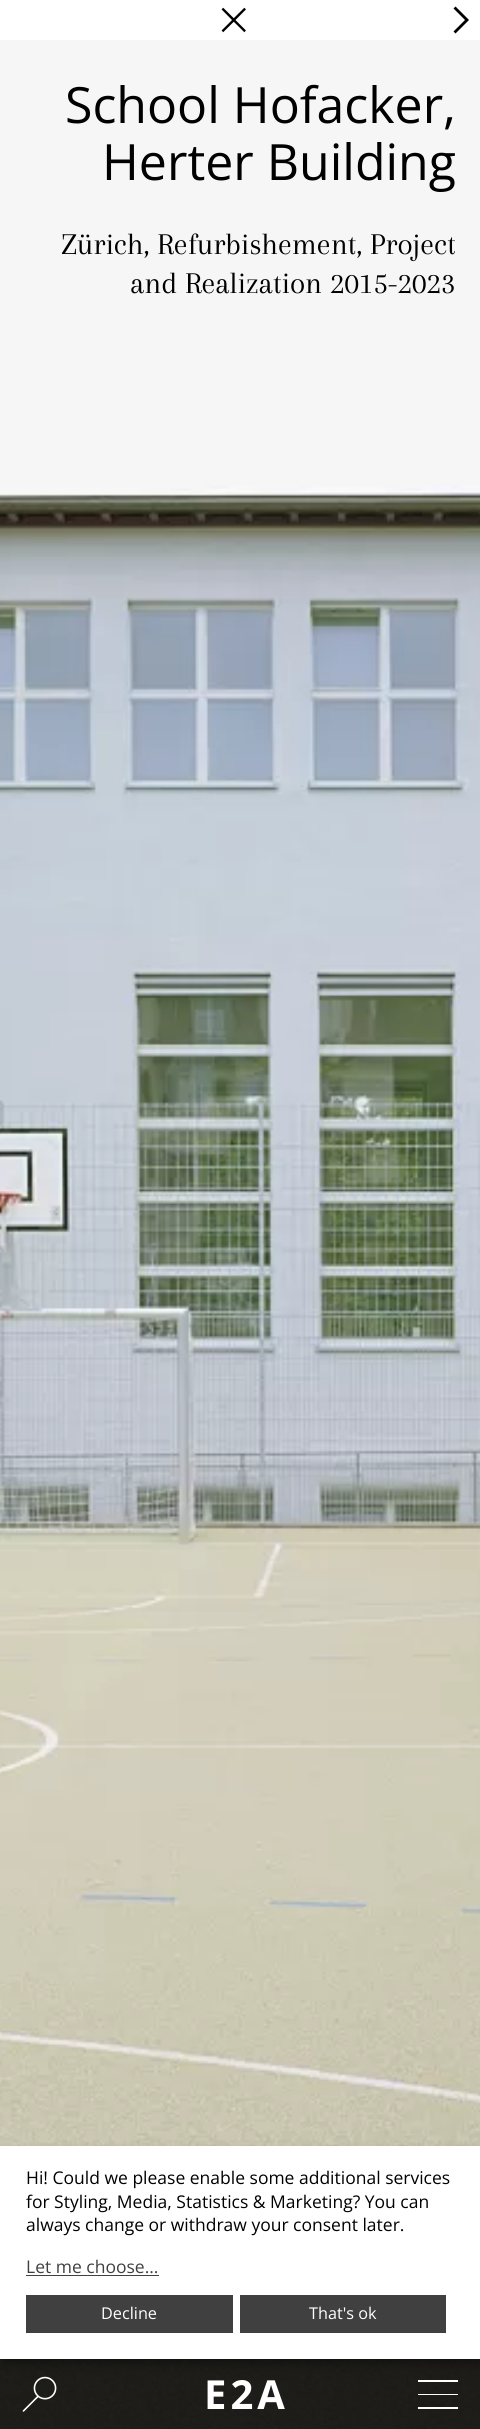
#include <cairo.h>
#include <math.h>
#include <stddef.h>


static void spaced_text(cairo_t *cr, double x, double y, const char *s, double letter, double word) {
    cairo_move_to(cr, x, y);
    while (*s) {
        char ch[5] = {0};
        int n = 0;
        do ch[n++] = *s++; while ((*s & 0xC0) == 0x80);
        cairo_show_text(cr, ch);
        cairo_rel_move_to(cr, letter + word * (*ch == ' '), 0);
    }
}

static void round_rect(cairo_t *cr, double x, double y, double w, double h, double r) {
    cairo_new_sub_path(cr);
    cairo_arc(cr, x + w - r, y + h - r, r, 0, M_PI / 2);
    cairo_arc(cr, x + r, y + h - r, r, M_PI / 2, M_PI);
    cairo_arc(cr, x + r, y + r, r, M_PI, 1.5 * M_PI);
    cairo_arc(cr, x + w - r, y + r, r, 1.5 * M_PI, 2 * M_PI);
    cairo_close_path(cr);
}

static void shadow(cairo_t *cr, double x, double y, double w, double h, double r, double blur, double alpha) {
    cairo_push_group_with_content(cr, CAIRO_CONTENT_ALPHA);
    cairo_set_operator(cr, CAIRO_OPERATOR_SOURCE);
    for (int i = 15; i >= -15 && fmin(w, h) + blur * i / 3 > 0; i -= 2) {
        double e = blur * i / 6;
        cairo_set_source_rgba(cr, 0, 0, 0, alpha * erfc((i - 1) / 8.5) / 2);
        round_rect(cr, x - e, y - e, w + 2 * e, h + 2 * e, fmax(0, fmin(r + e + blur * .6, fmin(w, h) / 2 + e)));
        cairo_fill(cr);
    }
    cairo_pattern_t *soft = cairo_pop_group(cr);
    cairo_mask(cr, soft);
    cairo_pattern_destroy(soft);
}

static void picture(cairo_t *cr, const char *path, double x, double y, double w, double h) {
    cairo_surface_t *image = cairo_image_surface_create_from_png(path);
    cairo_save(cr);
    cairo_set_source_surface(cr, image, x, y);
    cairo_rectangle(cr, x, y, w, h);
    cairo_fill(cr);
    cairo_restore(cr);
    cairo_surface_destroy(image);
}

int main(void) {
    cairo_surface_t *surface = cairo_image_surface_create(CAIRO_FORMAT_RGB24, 480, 2429);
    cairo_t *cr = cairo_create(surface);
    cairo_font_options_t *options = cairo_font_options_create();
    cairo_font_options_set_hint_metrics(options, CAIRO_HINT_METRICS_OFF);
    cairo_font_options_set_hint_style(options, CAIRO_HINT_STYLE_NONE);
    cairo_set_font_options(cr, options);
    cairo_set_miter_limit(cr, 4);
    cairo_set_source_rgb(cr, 1, 1, 1);
    cairo_paint(cr);
    picture(cr, "img1.png", 221, 7, 25, 26);
    cairo_set_source_rgb(cr, 0, 0, 0);
    cairo_new_path(cr);
    cairo_move_to(cr, 455.5, 6.5);
    cairo_line_to(cr, 469, 20);
    cairo_line_to(cr, 455.5, 33.5);
    cairo_line_to(cr, 453.5, 31.5);
    cairo_line_to(cr, 465, 20);
    cairo_line_to(cr, 453.5, 8.5);
    cairo_close_path(cr);
    cairo_fill(cr);
    picture(cr, "img2.png", 0, 40, 480, 2389);
    cairo_select_font_face(cr, "Open Sans", CAIRO_FONT_SLANT_NORMAL, CAIRO_FONT_WEIGHT_NORMAL);
    cairo_set_font_size(cr, 50);
    cairo_move_to(cr, 65, 123);
    cairo_show_text(cr, "School Hofacker,");
    cairo_move_to(cr, 102, 180);
    cairo_show_text(cr, "Herter Building");
    cairo_select_font_face(cr, "Arapey", CAIRO_FONT_SLANT_NORMAL, CAIRO_FONT_WEIGHT_NORMAL);
    cairo_set_font_size(cr, 31.25);
    cairo_move_to(cr, 61, 254);
    cairo_show_text(cr, "Zürich, Refurbishement, Project");
    cairo_move_to(cr, 130, 293);
    cairo_show_text(cr, "and Realization 2015-2023");
    cairo_set_source_rgb(cr, 0, 0, 0);
    shadow(cr, 6, 2153, 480, 212, 0, 6, 0.19);
    shadow(cr, 0, 2151, 480, 213, 0, 4, 0.2);
    cairo_set_source_rgba(cr, 0, 0, 0, 0.85);
    cairo_rectangle(cr, 0, 2359, 480, 70);
    cairo_fill(cr);
    picture(cr, "img3.png", 22, 2376, 35, 36);
    cairo_select_font_face(cr, "Open Sans", CAIRO_FONT_SLANT_NORMAL, CAIRO_FONT_WEIGHT_BOLD);
    cairo_set_font_size(cr, 40);
    cairo_set_source_rgb(cr, 1, 1, 1);
    spaced_text(cr, 204, 2409, "E2A", 4, 0);
    cairo_new_path(cr);
    cairo_move_to(cr, 418, 2380);
    cairo_line_to(cr, 458, 2380);
    cairo_line_to(cr, 458, 2382);
    cairo_line_to(cr, 418, 2382);
    cairo_close_path(cr);
    cairo_move_to(cr, 418, 2394);
    cairo_line_to(cr, 458, 2394);
    cairo_line_to(cr, 458, 2395);
    cairo_line_to(cr, 418, 2395);
    cairo_close_path(cr);
    cairo_move_to(cr, 418, 2407);
    cairo_line_to(cr, 458, 2407);
    cairo_line_to(cr, 458, 2409);
    cairo_line_to(cr, 418, 2409);
    cairo_close_path(cr);
    cairo_fill(cr);
    cairo_rectangle(cr, 0, 2146, 480, 213);
    cairo_fill(cr);
    cairo_select_font_face(cr, "Open Sans", CAIRO_FONT_SLANT_NORMAL, CAIRO_FONT_WEIGHT_NORMAL);
    cairo_set_font_size(cr, 17.5);
    cairo_set_source_rgb(cr, 0, 0, 0);
    cairo_move_to(cr, 26, 2184);
    cairo_show_text(cr, "Hi! Could we please enable some additional services");
    cairo_move_to(cr, 26, 2208);
    cairo_show_text(cr, "for Styling, Media, Statistics & Marketing? You can");
    cairo_move_to(cr, 26, 2231);
    cairo_show_text(cr, "always change or withdraw your consent later.");
    cairo_set_source_rgb(cr, 0.251, 0.251, 0.251);
    cairo_move_to(cr, 26, 2273);
    cairo_show_text(cr, "Let me choose...");
    cairo_rectangle(cr, 26, 2275, 133, 1);
    cairo_fill(cr);
    cairo_rectangle(cr, 26, 2295, 207, 38);
    cairo_fill(cr);
    cairo_set_font_size(cr, 16.25);
    cairo_set_source_rgb(cr, 1, 1, 1);
    cairo_move_to(cr, 101, 2319);
    cairo_show_text(cr, "Decline");
    cairo_set_source_rgb(cr, 0.251, 0.251, 0.251);
    cairo_rectangle(cr, 240, 2295, 206, 38);
    cairo_fill(cr);
    cairo_set_source_rgb(cr, 1, 1, 1);
    cairo_move_to(cr, 309, 2319);
    cairo_show_text(cr, "That's ok");
    cairo_surface_write_to_png(surface, "page.png");
    cairo_font_options_destroy(options);
    cairo_destroy(cr);
    cairo_surface_destroy(surface);
    return 0;
}
